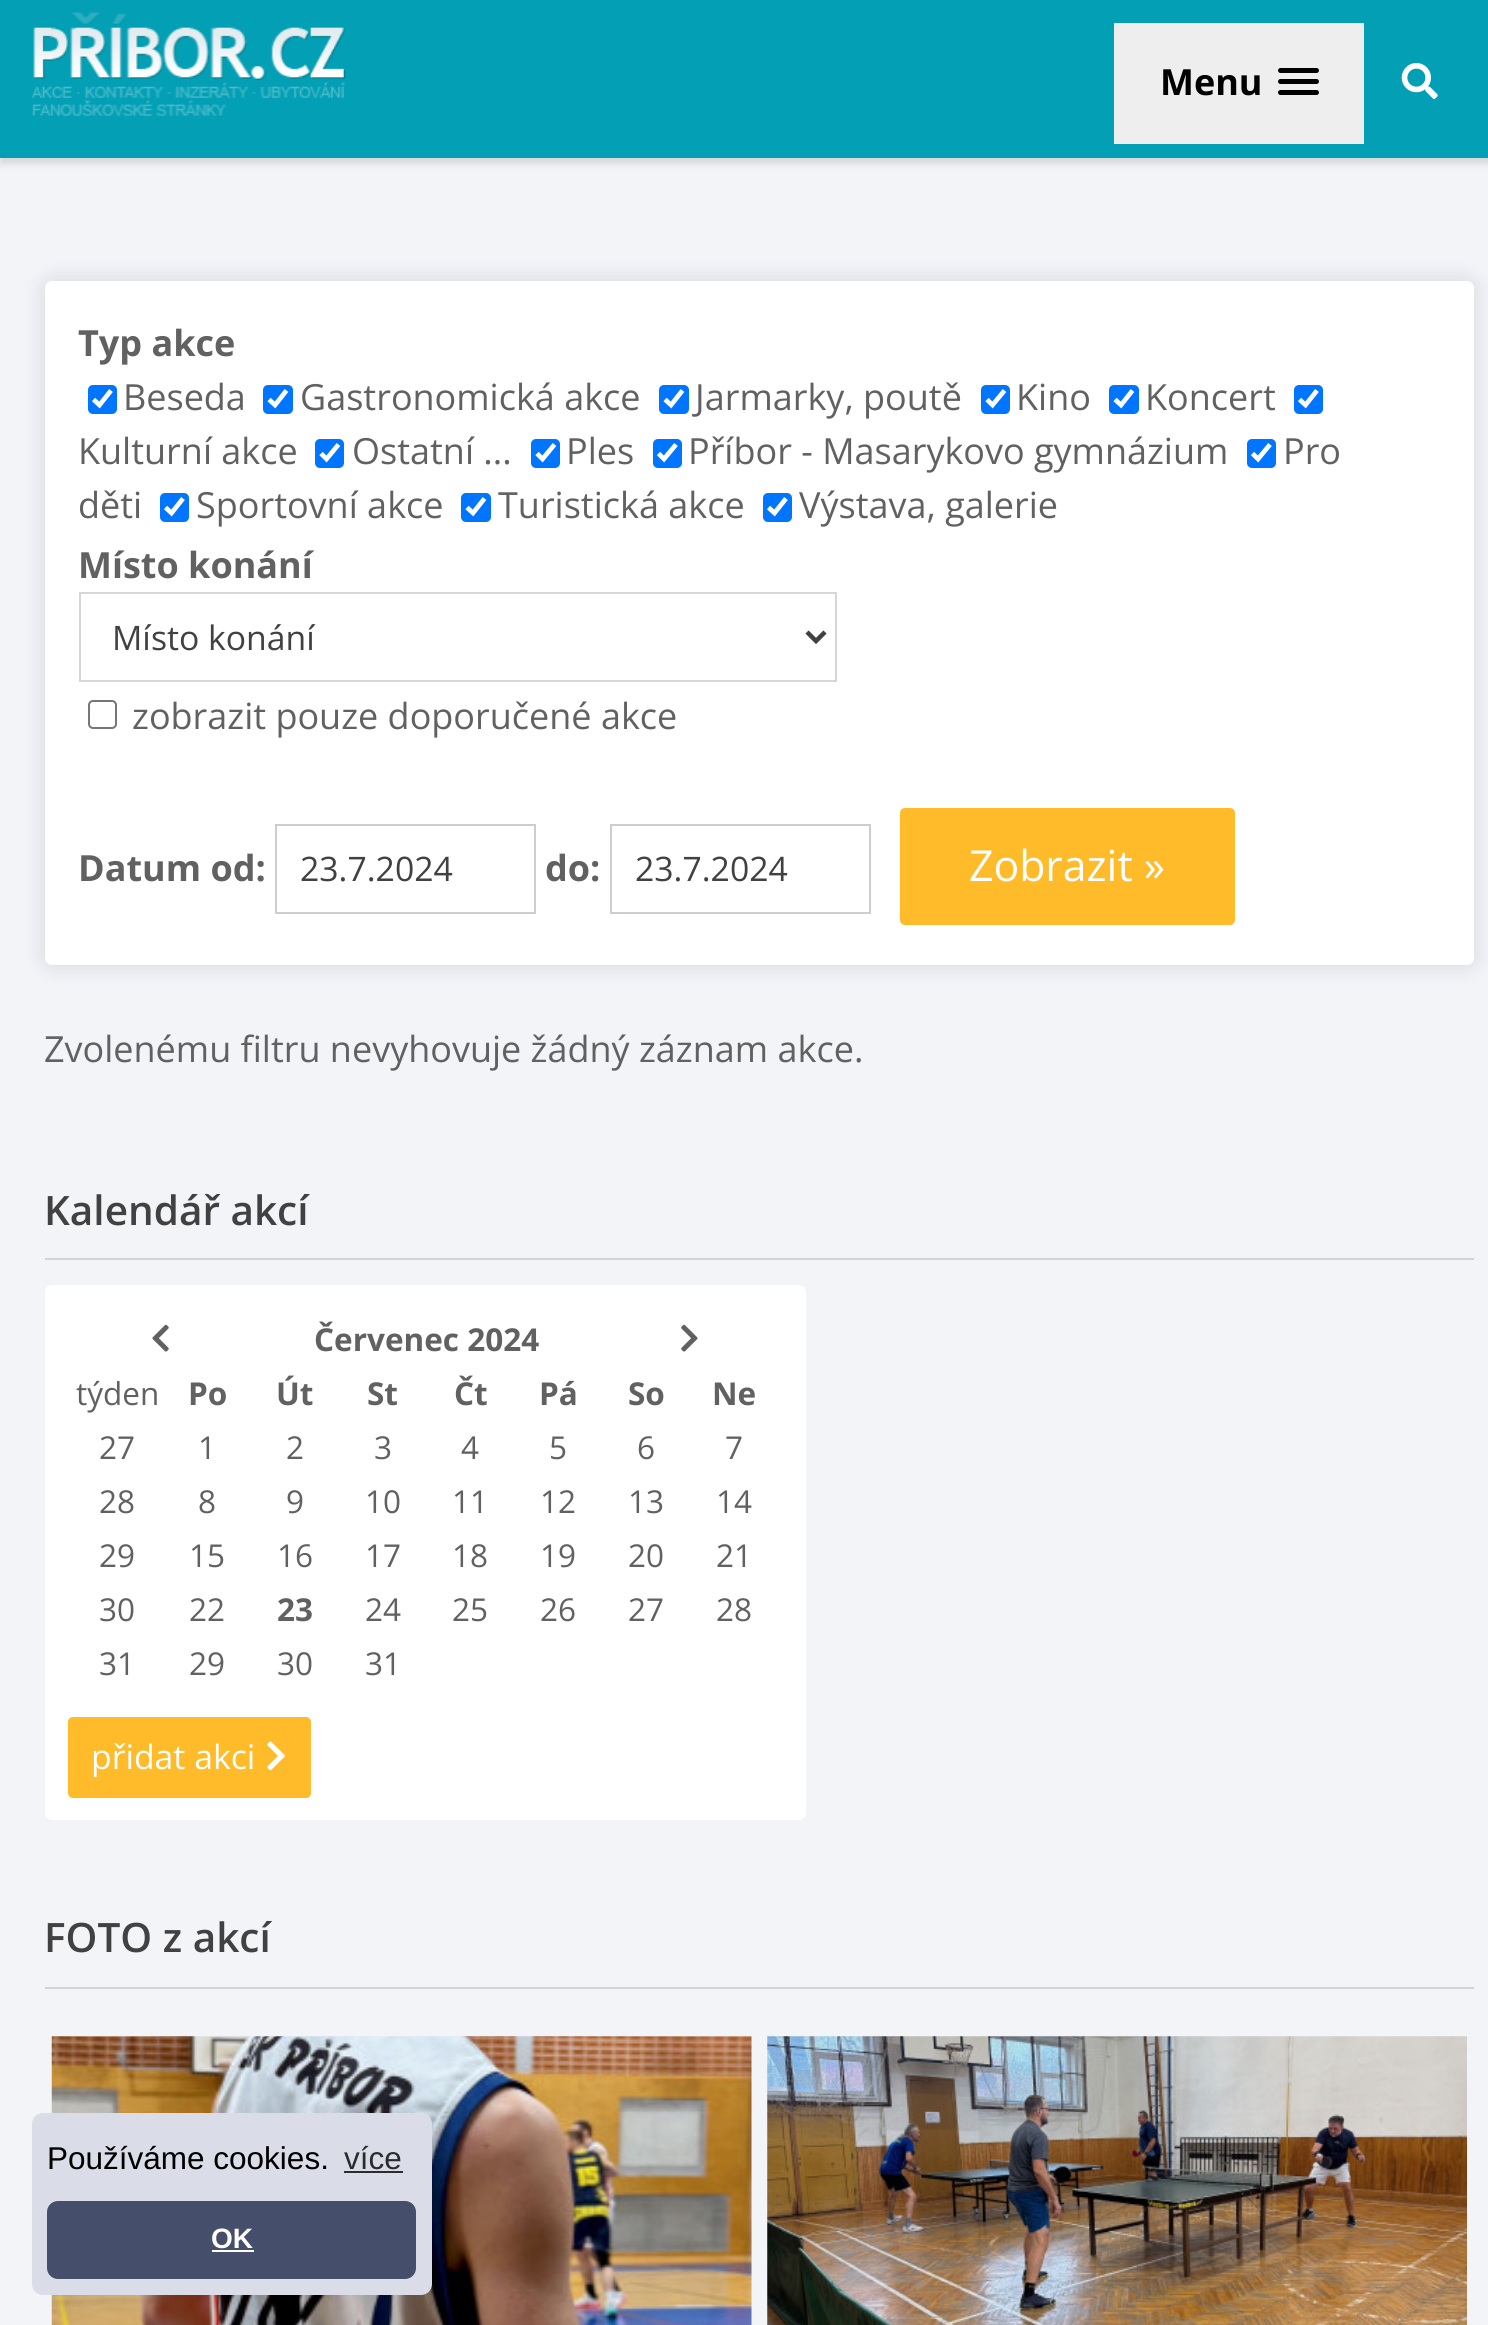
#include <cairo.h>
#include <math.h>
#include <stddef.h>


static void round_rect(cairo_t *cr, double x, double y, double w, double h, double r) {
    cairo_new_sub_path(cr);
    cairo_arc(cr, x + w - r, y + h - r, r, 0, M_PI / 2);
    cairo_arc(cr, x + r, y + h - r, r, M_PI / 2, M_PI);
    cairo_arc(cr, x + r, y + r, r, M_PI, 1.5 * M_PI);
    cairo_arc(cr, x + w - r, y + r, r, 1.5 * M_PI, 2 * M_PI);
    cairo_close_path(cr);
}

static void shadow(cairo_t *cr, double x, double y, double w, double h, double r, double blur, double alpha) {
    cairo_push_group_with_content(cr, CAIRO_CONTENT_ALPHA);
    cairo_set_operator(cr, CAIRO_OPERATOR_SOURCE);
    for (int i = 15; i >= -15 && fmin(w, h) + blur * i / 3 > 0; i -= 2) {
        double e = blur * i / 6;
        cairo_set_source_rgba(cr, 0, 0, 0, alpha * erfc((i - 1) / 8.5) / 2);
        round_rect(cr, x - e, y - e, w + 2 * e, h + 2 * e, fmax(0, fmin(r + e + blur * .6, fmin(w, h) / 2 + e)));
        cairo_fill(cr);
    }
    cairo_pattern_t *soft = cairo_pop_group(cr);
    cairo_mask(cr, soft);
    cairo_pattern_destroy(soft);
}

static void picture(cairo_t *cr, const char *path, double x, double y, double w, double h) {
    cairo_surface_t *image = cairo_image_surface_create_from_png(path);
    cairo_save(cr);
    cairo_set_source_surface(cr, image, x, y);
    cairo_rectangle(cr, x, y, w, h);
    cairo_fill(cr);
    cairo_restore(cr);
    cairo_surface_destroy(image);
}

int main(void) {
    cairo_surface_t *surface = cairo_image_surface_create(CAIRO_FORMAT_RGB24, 1488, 2325);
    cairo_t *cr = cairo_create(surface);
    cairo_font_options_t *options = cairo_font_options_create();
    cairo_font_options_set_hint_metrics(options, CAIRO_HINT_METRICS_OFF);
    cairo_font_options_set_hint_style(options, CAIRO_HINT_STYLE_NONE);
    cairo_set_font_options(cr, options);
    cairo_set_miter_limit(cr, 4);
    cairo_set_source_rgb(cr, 0.953, 0.957, 0.969);
    cairo_paint(cr);
    cairo_set_source_rgb(cr, 0.392, 0.392, 0.392);
    shadow(cr, 0, 7, 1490, 157, 0, 3.5, 0.2);
    cairo_set_source_rgb(cr, 0.012, 0.624, 0.71);
    cairo_rectangle(cr, 0, 0, 1488, 158);
    cairo_fill(cr);
    picture(cr, "img1.png", 31, 12, 315, 104);
    cairo_set_source_rgb(cr, 0.933, 0.933, 0.933);
    cairo_rectangle(cr, 1114, 23, 250, 121);
    cairo_fill(cr);
    cairo_select_font_face(cr, "Open Sans", CAIRO_FONT_SLANT_NORMAL, CAIRO_FONT_WEIGHT_BOLD);
    cairo_set_font_size(cr, 36);
    cairo_set_source_rgb(cr, 0, 0, 0);
    cairo_move_to(cr, 1160, 95);
    cairo_show_text(cr, "Menu");
    round_rect(cr, 1278, 68, 41, 5, 2.5);
    cairo_fill(cr);
    round_rect(cr, 1278, 79, 41, 5, 2.5);
    cairo_fill(cr);
    round_rect(cr, 1278, 90, 41, 5, 2.5);
    cairo_fill(cr);
    picture(cr, "img2.png", 1401, 63, 37, 36);
    cairo_set_source_rgb(cr, 0.122, 0.153, 0.275);
    shadow(cr, 45, 281, 1429, 684, 7, 11, 0.15);
    cairo_set_source_rgb(cr, 1, 1, 1);
    round_rect(cr, 45, 281, 1429, 684, 7);
    cairo_fill(cr);
    cairo_set_source_rgb(cr, 0.38, 0.38, 0.38);
    cairo_move_to(cr, 78, 356);
    cairo_show_text(cr, "Typ akce");
    cairo_set_source_rgb(cr, 0, 0.459, 1);
    round_rect(cr, 88, 385, 29, 29, 5);
    cairo_fill(cr);
    cairo_new_path(cr);
    cairo_move_to(cr, 93.5, 399.5);
    cairo_line_to(cr, 99.5, 405);
    cairo_line_to(cr, 111, 390.5);
    cairo_set_source_rgb(cr, 1, 1, 1);
    cairo_set_line_width(cr, 4.7);
    cairo_stroke(cr);
    cairo_select_font_face(cr, "Open Sans", CAIRO_FONT_SLANT_NORMAL, CAIRO_FONT_WEIGHT_NORMAL);
    cairo_set_source_rgb(cr, 0.38, 0.38, 0.38);
    cairo_move_to(cr, 123, 410);
    cairo_show_text(cr, "Beseda");
    cairo_set_source_rgb(cr, 0, 0.459, 1);
    round_rect(cr, 263, 385, 30, 29, 5);
    cairo_fill(cr);
    cairo_new_path(cr);
    cairo_move_to(cr, 269, 399.5);
    cairo_line_to(cr, 275, 405);
    cairo_line_to(cr, 286.5, 390.5);
    cairo_set_source_rgb(cr, 1, 1, 1);
    cairo_stroke(cr);
    cairo_set_source_rgb(cr, 0.38, 0.38, 0.38);
    cairo_move_to(cr, 300, 410);
    cairo_show_text(cr, "Gastronomická akce");
    cairo_set_source_rgb(cr, 0, 0.459, 1);
    round_rect(cr, 659, 385, 30, 29, 5);
    cairo_fill(cr);
    cairo_new_path(cr);
    cairo_move_to(cr, 665, 399.5);
    cairo_line_to(cr, 671, 405);
    cairo_line_to(cr, 682.5, 390.5);
    cairo_set_source_rgb(cr, 1, 1, 1);
    cairo_stroke(cr);
    cairo_set_source_rgb(cr, 0.38, 0.38, 0.38);
    cairo_move_to(cr, 695, 410);
    cairo_show_text(cr, "Jarmarky, poutě");
    cairo_set_source_rgb(cr, 0, 0.459, 1);
    round_rect(cr, 981, 385, 29, 29, 5);
    cairo_fill(cr);
    cairo_new_path(cr);
    cairo_move_to(cr, 987, 399.5);
    cairo_line_to(cr, 992.5, 405);
    cairo_line_to(cr, 1004.5, 390.5);
    cairo_set_source_rgb(cr, 1, 1, 1);
    cairo_stroke(cr);
    cairo_set_source_rgb(cr, 0.38, 0.38, 0.38);
    cairo_move_to(cr, 1016, 410);
    cairo_show_text(cr, "Kino");
    cairo_set_source_rgb(cr, 0, 0.459, 1);
    round_rect(cr, 1109, 385, 30, 29, 5);
    cairo_fill(cr);
    cairo_new_path(cr);
    cairo_move_to(cr, 1115, 399.5);
    cairo_line_to(cr, 1121, 405);
    cairo_line_to(cr, 1132.5, 390.5);
    cairo_set_source_rgb(cr, 1, 1, 1);
    cairo_stroke(cr);
    cairo_set_source_rgb(cr, 0.38, 0.38, 0.38);
    cairo_move_to(cr, 1145, 410);
    cairo_show_text(cr, "Koncert");
    cairo_set_source_rgb(cr, 0, 0.459, 1);
    round_rect(cr, 1294, 385, 29, 29, 5);
    cairo_fill(cr);
    cairo_new_path(cr);
    cairo_move_to(cr, 1299.5, 399.5);
    cairo_line_to(cr, 1305.5, 405);
    cairo_line_to(cr, 1317, 390.5);
    cairo_set_source_rgb(cr, 1, 1, 1);
    cairo_stroke(cr);
    cairo_set_source_rgb(cr, 0.38, 0.38, 0.38);
    cairo_move_to(cr, 78, 464);
    cairo_show_text(cr, "Kulturní akce");
    cairo_set_source_rgb(cr, 0, 0.459, 1);
    round_rect(cr, 315, 439, 29, 29, 5);
    cairo_fill(cr);
    cairo_new_path(cr);
    cairo_move_to(cr, 321, 453.5);
    cairo_line_to(cr, 326.5, 459);
    cairo_line_to(cr, 338.5, 444.5);
    cairo_set_source_rgb(cr, 1, 1, 1);
    cairo_stroke(cr);
    cairo_set_source_rgb(cr, 0.38, 0.38, 0.38);
    cairo_move_to(cr, 352, 464);
    cairo_show_text(cr, "Ostatní ...");
    cairo_set_source_rgb(cr, 0, 0.459, 1);
    round_rect(cr, 531, 439, 29, 29, 5);
    cairo_fill(cr);
    cairo_new_path(cr);
    cairo_move_to(cr, 537, 453.5);
    cairo_line_to(cr, 542.5, 459);
    cairo_line_to(cr, 554.5, 444.5);
    cairo_set_source_rgb(cr, 1, 1, 1);
    cairo_stroke(cr);
    cairo_set_source_rgb(cr, 0.38, 0.38, 0.38);
    cairo_move_to(cr, 566, 464);
    cairo_show_text(cr, "Ples");
    cairo_set_source_rgb(cr, 0, 0.459, 1);
    round_rect(cr, 653, 439, 29, 29, 5);
    cairo_fill(cr);
    cairo_new_path(cr);
    cairo_move_to(cr, 658.5, 453.5);
    cairo_line_to(cr, 664, 459);
    cairo_line_to(cr, 676, 444.5);
    cairo_set_source_rgb(cr, 1, 1, 1);
    cairo_stroke(cr);
    cairo_set_source_rgb(cr, 0.38, 0.38, 0.38);
    cairo_move_to(cr, 688, 464);
    cairo_show_text(cr, "Příbor - Masarykovo gymnázium");
    cairo_set_source_rgb(cr, 0, 0.459, 1);
    round_rect(cr, 1247, 439, 29, 29, 5);
    cairo_fill(cr);
    cairo_new_path(cr);
    cairo_move_to(cr, 1252.5, 453.5);
    cairo_line_to(cr, 1258, 459);
    cairo_line_to(cr, 1270, 444.5);
    cairo_set_source_rgb(cr, 1, 1, 1);
    cairo_stroke(cr);
    cairo_set_source_rgb(cr, 0.38, 0.38, 0.38);
    cairo_move_to(cr, 1283, 464);
    cairo_show_text(cr, "Pro");
    cairo_move_to(cr, 78, 518);
    cairo_show_text(cr, "děti");
    cairo_set_source_rgb(cr, 0, 0.459, 1);
    round_rect(cr, 160, 493, 29, 29, 5);
    cairo_fill(cr);
    cairo_new_path(cr);
    cairo_move_to(cr, 165.5, 507.5);
    cairo_line_to(cr, 171.5, 513);
    cairo_line_to(cr, 183, 498.5);
    cairo_set_source_rgb(cr, 1, 1, 1);
    cairo_stroke(cr);
    cairo_set_source_rgb(cr, 0.38, 0.38, 0.38);
    cairo_move_to(cr, 196, 518);
    cairo_show_text(cr, "Sportovní akce");
    cairo_set_source_rgb(cr, 0, 0.459, 1);
    round_rect(cr, 461, 493, 30, 29, 5);
    cairo_fill(cr);
    cairo_new_path(cr);
    cairo_move_to(cr, 467, 507.5);
    cairo_line_to(cr, 473, 513);
    cairo_line_to(cr, 484.5, 498.5);
    cairo_set_source_rgb(cr, 1, 1, 1);
    cairo_stroke(cr);
    cairo_set_source_rgb(cr, 0.38, 0.38, 0.38);
    cairo_move_to(cr, 498, 518);
    cairo_show_text(cr, "Turistická akce");
    cairo_set_source_rgb(cr, 0, 0.459, 1);
    round_rect(cr, 763, 493, 29, 29, 5);
    cairo_fill(cr);
    cairo_new_path(cr);
    cairo_move_to(cr, 768.5, 507.5);
    cairo_line_to(cr, 774.5, 513);
    cairo_line_to(cr, 786, 498.5);
    cairo_set_source_rgb(cr, 1, 1, 1);
    cairo_stroke(cr);
    cairo_set_source_rgb(cr, 0.38, 0.38, 0.38);
    cairo_move_to(cr, 799, 518);
    cairo_show_text(cr, "Výstava, galerie");
    cairo_select_font_face(cr, "Open Sans", CAIRO_FONT_SLANT_NORMAL, CAIRO_FONT_WEIGHT_BOLD);
    cairo_move_to(cr, 78, 578);
    cairo_show_text(cr, "Místo konání");
    cairo_rectangle(cr, 80, 593, 756, 88);
    cairo_set_source_rgb(cr, 0.839, 0.839, 0.847);
    cairo_set_line_width(cr, 2);
    cairo_stroke(cr);
    cairo_new_path(cr);
    cairo_move_to(cr, 807, 632);
    cairo_line_to(cr, 816, 641);
    cairo_line_to(cr, 825, 632);
    cairo_set_source_rgb(cr, 0.255, 0.255, 0.255);
    cairo_set_line_width(cr, 4.5);
    cairo_stroke(cr);
    cairo_select_font_face(cr, "Open Sans", CAIRO_FONT_SLANT_NORMAL, CAIRO_FONT_WEIGHT_NORMAL);
    cairo_set_font_size(cr, 33.75);
    cairo_move_to(cr, 112, 650);
    cairo_show_text(cr, "Místo konání");
    round_rect(cr, 89, 701, 27, 27, 4);
    cairo_set_source_rgb(cr, 0.463, 0.463, 0.463);
    cairo_set_line_width(cr, 2);
    cairo_stroke(cr);
    cairo_set_font_size(cr, 36);
    cairo_set_source_rgb(cr, 0.38, 0.38, 0.38);
    cairo_move_to(cr, 132, 729);
    cairo_show_text(cr, "zobrazit pouze doporučené akce");
    cairo_select_font_face(cr, "Open Sans", CAIRO_FONT_SLANT_NORMAL, CAIRO_FONT_WEIGHT_BOLD);
    cairo_move_to(cr, 78, 881);
    cairo_show_text(cr, "Datum od:");
    cairo_rectangle(cr, 276, 825, 259, 88);
    cairo_set_source_rgb(cr, 0.808, 0.8, 0.8);
    cairo_stroke(cr);
    cairo_select_font_face(cr, "Open Sans", CAIRO_FONT_SLANT_NORMAL, CAIRO_FONT_WEIGHT_NORMAL);
    cairo_set_font_size(cr, 33.75);
    cairo_set_source_rgb(cr, 0.255, 0.255, 0.255);
    cairo_move_to(cr, 300, 881);
    cairo_show_text(cr, "23.7.2024");
    cairo_select_font_face(cr, "Open Sans", CAIRO_FONT_SLANT_NORMAL, CAIRO_FONT_WEIGHT_BOLD);
    cairo_set_font_size(cr, 36);
    cairo_set_source_rgb(cr, 0.38, 0.38, 0.38);
    cairo_move_to(cr, 545, 881);
    cairo_show_text(cr, "do:");
    cairo_rectangle(cr, 611, 825, 259, 88);
    cairo_set_source_rgb(cr, 0.808, 0.8, 0.8);
    cairo_stroke(cr);
    cairo_select_font_face(cr, "Open Sans", CAIRO_FONT_SLANT_NORMAL, CAIRO_FONT_WEIGHT_NORMAL);
    cairo_set_font_size(cr, 33.75);
    cairo_set_source_rgb(cr, 0.255, 0.255, 0.255);
    cairo_move_to(cr, 635, 881);
    cairo_show_text(cr, "23.7.2024");
    cairo_set_source_rgb(cr, 1, 0.733, 0.161);
    round_rect(cr, 900, 808, 335, 117, 5);
    cairo_fill(cr);
    cairo_set_font_size(cr, 42.75);
    cairo_set_source_rgb(cr, 1, 1, 1);
    cairo_move_to(cr, 969, 881);
    cairo_show_text(cr, "Zobrazit »");
    cairo_set_font_size(cr, 36);
    cairo_set_source_rgb(cr, 0.38, 0.38, 0.38);
    cairo_move_to(cr, 44, 1062);
    cairo_show_text(cr, "Zvolenému filtru nevyhovuje žádný záznam akce.");
    cairo_select_font_face(cr, "Open Sans SemiBold", CAIRO_FONT_SLANT_NORMAL, CAIRO_FONT_WEIGHT_NORMAL);
    cairo_set_font_size(cr, 40.5);
    cairo_set_source_rgb(cr, 0.255, 0.255, 0.255);
    cairo_move_to(cr, 44, 1225);
    cairo_show_text(cr, "Kalendář akcí");
    cairo_set_source_rgb(cr, 0.827, 0.827, 0.827);
    cairo_rectangle(cr, 45, 1258, 1429, 2);
    cairo_fill(cr);
    cairo_set_source_rgb(cr, 1, 1, 1);
    round_rect(cr, 45, 1285, 761, 535, 7);
    cairo_fill(cr);
    picture(cr, "img3.png", 152, 1324, 17, 28);
    cairo_select_font_face(cr, "Open Sans", CAIRO_FONT_SLANT_NORMAL, CAIRO_FONT_WEIGHT_BOLD);
    cairo_set_font_size(cr, 31.5);
    cairo_set_source_rgb(cr, 0.38, 0.38, 0.38);
    cairo_move_to(cr, 314, 1351);
    cairo_show_text(cr, "Červenec 2024");
    picture(cr, "img4.png", 681, 1324, 17, 28);
    cairo_select_font_face(cr, "Open Sans", CAIRO_FONT_SLANT_NORMAL, CAIRO_FONT_WEIGHT_NORMAL);
    cairo_move_to(cr, 76, 1405);
    cairo_show_text(cr, "týden");
    cairo_select_font_face(cr, "Open Sans", CAIRO_FONT_SLANT_NORMAL, CAIRO_FONT_WEIGHT_BOLD);
    cairo_move_to(cr, 188, 1405);
    cairo_show_text(cr, "Po");
    cairo_move_to(cr, 276, 1405);
    cairo_show_text(cr, "Út");
    cairo_move_to(cr, 367, 1405);
    cairo_show_text(cr, "St");
    cairo_move_to(cr, 454, 1405);
    cairo_show_text(cr, "Čt");
    cairo_move_to(cr, 539, 1405);
    cairo_show_text(cr, "Pá");
    cairo_move_to(cr, 628, 1405);
    cairo_show_text(cr, "So");
    cairo_move_to(cr, 712, 1405);
    cairo_show_text(cr, "Ne");
    cairo_select_font_face(cr, "Open Sans", CAIRO_FONT_SLANT_NORMAL, CAIRO_FONT_WEIGHT_NORMAL);
    cairo_move_to(cr, 99, 1459);
    cairo_show_text(cr, "27");
    cairo_move_to(cr, 198, 1459);
    cairo_show_text(cr, "1");
    cairo_move_to(cr, 286, 1459);
    cairo_show_text(cr, "2");
    cairo_move_to(cr, 374, 1459);
    cairo_show_text(cr, "3");
    cairo_move_to(cr, 461, 1459);
    cairo_show_text(cr, "4");
    cairo_move_to(cr, 549, 1459);
    cairo_show_text(cr, "5");
    cairo_move_to(cr, 637, 1459);
    cairo_show_text(cr, "6");
    cairo_move_to(cr, 725, 1459);
    cairo_show_text(cr, "7");
    cairo_move_to(cr, 99, 1513);
    cairo_show_text(cr, "28");
    cairo_move_to(cr, 198, 1513);
    cairo_show_text(cr, "8");
    cairo_move_to(cr, 286, 1513);
    cairo_show_text(cr, "9");
    cairo_move_to(cr, 365, 1513);
    cairo_show_text(cr, "10");
    cairo_move_to(cr, 452, 1513);
    cairo_show_text(cr, "11");
    cairo_move_to(cr, 540, 1513);
    cairo_show_text(cr, "12");
    cairo_move_to(cr, 628, 1513);
    cairo_show_text(cr, "13");
    cairo_move_to(cr, 716, 1513);
    cairo_show_text(cr, "14");
    cairo_move_to(cr, 99, 1567);
    cairo_show_text(cr, "29");
    cairo_move_to(cr, 189, 1567);
    cairo_show_text(cr, "15");
    cairo_move_to(cr, 277, 1567);
    cairo_show_text(cr, "16");
    cairo_move_to(cr, 365, 1567);
    cairo_show_text(cr, "17");
    cairo_move_to(cr, 452, 1567);
    cairo_show_text(cr, "18");
    cairo_move_to(cr, 540, 1567);
    cairo_show_text(cr, "19");
    cairo_move_to(cr, 628, 1567);
    cairo_show_text(cr, "20");
    cairo_move_to(cr, 716, 1567);
    cairo_show_text(cr, "21");
    cairo_move_to(cr, 99, 1621);
    cairo_show_text(cr, "30");
    cairo_move_to(cr, 189, 1621);
    cairo_show_text(cr, "22");
    cairo_select_font_face(cr, "Open Sans", CAIRO_FONT_SLANT_NORMAL, CAIRO_FONT_WEIGHT_BOLD);
    cairo_move_to(cr, 277, 1621);
    cairo_show_text(cr, "23");
    cairo_select_font_face(cr, "Open Sans", CAIRO_FONT_SLANT_NORMAL, CAIRO_FONT_WEIGHT_NORMAL);
    cairo_move_to(cr, 365, 1621);
    cairo_show_text(cr, "24");
    cairo_move_to(cr, 452, 1621);
    cairo_show_text(cr, "25");
    cairo_move_to(cr, 540, 1621);
    cairo_show_text(cr, "26");
    cairo_move_to(cr, 628, 1621);
    cairo_show_text(cr, "27");
    cairo_move_to(cr, 716, 1621);
    cairo_show_text(cr, "28");
    cairo_move_to(cr, 99, 1675);
    cairo_show_text(cr, "31");
    cairo_move_to(cr, 189, 1675);
    cairo_show_text(cr, "29");
    cairo_move_to(cr, 277, 1675);
    cairo_show_text(cr, "30");
    cairo_move_to(cr, 365, 1675);
    cairo_show_text(cr, "31");
    cairo_set_source_rgb(cr, 1, 0.733, 0.161);
    round_rect(cr, 68, 1717, 243, 81, 5);
    cairo_fill(cr);
    cairo_set_font_size(cr, 33.75);
    cairo_set_source_rgb(cr, 1, 1, 1);
    cairo_move_to(cr, 91, 1769);
    cairo_show_text(cr, "přidat akci");
    picture(cr, "img5.png", 267, 1741, 18, 30);
    cairo_select_font_face(cr, "Open Sans SemiBold", CAIRO_FONT_SLANT_NORMAL, CAIRO_FONT_WEIGHT_NORMAL);
    cairo_set_font_size(cr, 40.5);
    cairo_set_source_rgb(cr, 0.255, 0.255, 0.255);
    cairo_move_to(cr, 44, 1952);
    cairo_show_text(cr, "FOTO z akcí");
    cairo_set_source_rgb(cr, 0.827, 0.827, 0.827);
    cairo_rectangle(cr, 45, 1987, 1429, 2);
    cairo_fill(cr);
    picture(cr, "img6.png", 51, 2036, 701, 289);
    picture(cr, "img7.png", 767, 2036, 700, 289);
    cairo_set_source_rgb(cr, 0.855, 0.867, 0.906);
    round_rect(cr, 32, 2113, 400, 182, 11);
    cairo_fill(cr);
    cairo_select_font_face(cr, "Liberation Sans", CAIRO_FONT_SLANT_NORMAL, CAIRO_FONT_WEIGHT_NORMAL);
    cairo_set_font_size(cr, 31.5);
    cairo_set_source_rgb(cr, 0, 0, 0);
    cairo_move_to(cr, 47, 2169);
    cairo_show_text(cr, "Používáme cookies.");
    cairo_set_source_rgb(cr, 0.173, 0.173, 0.18);
    cairo_move_to(cr, 344, 2169);
    cairo_show_text(cr, "více");
    cairo_rectangle(cr, 344, 2171, 59, 2);
    cairo_fill(cr);
    cairo_set_source_rgb(cr, 0.271, 0.306, 0.42);
    round_rect(cr, 47, 2201, 369, 78, 11);
    cairo_fill(cr);
    cairo_select_font_face(cr, "Liberation Sans", CAIRO_FONT_SLANT_NORMAL, CAIRO_FONT_WEIGHT_BOLD);
    cairo_set_font_size(cr, 28);
    cairo_set_source_rgb(cr, 1, 1, 1);
    cairo_move_to(cr, 211, 2248);
    cairo_show_text(cr, "OK");
    cairo_rectangle(cr, 212, 2250, 42, 2);
    cairo_fill(cr);
    cairo_surface_write_to_png(surface, "page.png");
    cairo_font_options_destroy(options);
    cairo_destroy(cr);
    cairo_surface_destroy(surface);
    return 0;
}
